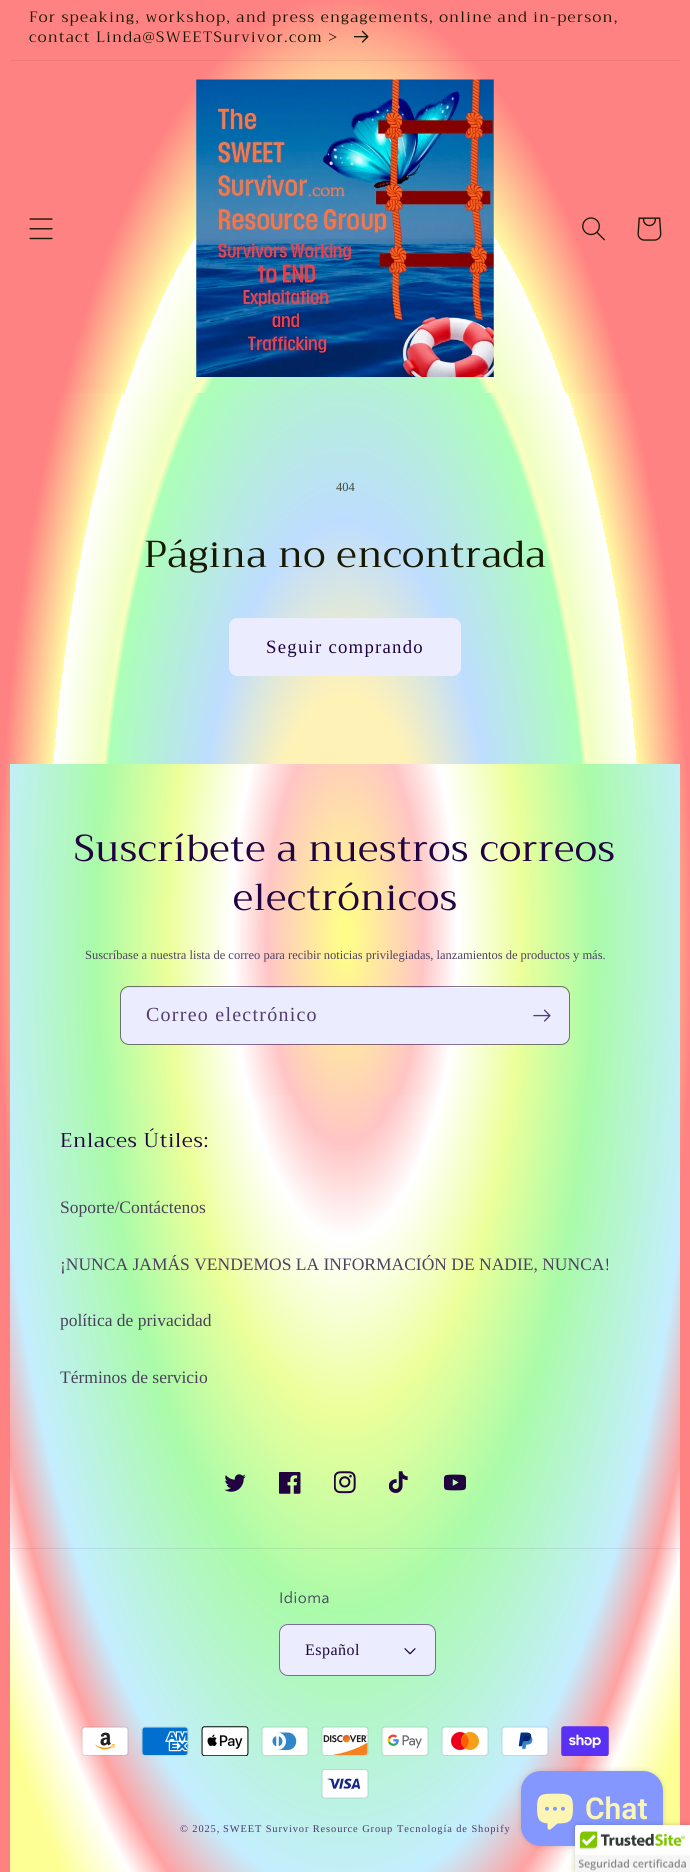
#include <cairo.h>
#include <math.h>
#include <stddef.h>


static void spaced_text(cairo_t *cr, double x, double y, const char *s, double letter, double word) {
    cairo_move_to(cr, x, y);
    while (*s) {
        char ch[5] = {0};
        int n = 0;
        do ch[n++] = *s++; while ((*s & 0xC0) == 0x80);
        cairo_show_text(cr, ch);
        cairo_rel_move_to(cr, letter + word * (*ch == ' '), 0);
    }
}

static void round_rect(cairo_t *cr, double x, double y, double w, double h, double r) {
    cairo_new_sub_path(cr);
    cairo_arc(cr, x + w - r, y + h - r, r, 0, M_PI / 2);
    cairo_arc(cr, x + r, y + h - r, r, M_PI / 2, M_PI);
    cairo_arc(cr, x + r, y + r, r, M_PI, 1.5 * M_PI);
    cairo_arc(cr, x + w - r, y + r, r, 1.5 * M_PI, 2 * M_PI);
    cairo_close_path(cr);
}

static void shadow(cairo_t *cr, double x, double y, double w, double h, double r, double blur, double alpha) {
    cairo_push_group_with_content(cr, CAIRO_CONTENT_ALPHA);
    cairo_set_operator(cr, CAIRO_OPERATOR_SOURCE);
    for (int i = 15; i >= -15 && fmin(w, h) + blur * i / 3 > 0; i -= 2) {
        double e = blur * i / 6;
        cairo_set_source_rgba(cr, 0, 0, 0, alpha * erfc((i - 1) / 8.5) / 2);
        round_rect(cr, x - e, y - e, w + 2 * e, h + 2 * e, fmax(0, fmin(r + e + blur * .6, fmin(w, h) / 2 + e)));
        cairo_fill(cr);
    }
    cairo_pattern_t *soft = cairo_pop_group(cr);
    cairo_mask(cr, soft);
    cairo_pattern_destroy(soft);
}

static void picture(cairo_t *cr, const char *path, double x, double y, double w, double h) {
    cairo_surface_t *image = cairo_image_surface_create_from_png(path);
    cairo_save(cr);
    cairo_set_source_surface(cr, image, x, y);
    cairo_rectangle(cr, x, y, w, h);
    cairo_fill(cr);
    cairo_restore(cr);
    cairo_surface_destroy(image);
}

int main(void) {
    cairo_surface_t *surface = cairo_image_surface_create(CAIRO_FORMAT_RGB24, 690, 1872);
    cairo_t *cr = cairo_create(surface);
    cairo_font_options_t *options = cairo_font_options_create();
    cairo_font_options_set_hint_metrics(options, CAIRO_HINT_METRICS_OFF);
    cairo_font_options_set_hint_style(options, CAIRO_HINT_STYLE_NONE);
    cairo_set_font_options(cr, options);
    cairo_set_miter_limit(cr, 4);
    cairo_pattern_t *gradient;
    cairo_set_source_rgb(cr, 1, 1, 1);
    cairo_paint(cr);
    gradient = cairo_pattern_create_radial(0, 0, 0, 0, 0, 1);
    cairo_pattern_set_matrix(gradient, &(cairo_matrix_t){1.0 / 488, 0, 0, 1.0 / 1324, -1.0 * 345 / 488, -1.0 * 936 / 1324});
    cairo_pattern_add_color_stop_rgba(gradient, 0.18, 1, 0.949, 0.718, 1);
    cairo_pattern_add_color_stop_rgba(gradient, 0.31, 0.745, 0.867, 1, 1);
    cairo_pattern_add_color_stop_rgba(gradient, 0.5, 0.675, 1, 0.718, 1);
    cairo_pattern_add_color_stop_rgba(gradient, 0.51, 0.98, 1, 0.749, 1);
    cairo_pattern_add_color_stop_rgba(gradient, 0.52, 0.941, 1, 0.761, 1);
    cairo_pattern_add_color_stop_rgba(gradient, 0.61, 1, 1, 1, 1);
    cairo_pattern_add_color_stop_rgba(gradient, 0.61, 1, 0.984, 0.643, 1);
    cairo_pattern_add_color_stop_rgba(gradient, 0.71, 1, 0.51, 0.51, 1);
    cairo_set_source(cr, gradient);
    cairo_pattern_destroy(gradient);
    cairo_rectangle(cr, 0, 0, 690, 1872);
    cairo_fill(cr);
    cairo_rectangle(cr, 214, 0, 262, 60);
    cairo_fill(cr);
    gradient = cairo_pattern_create_radial(0, 0, 0, 0, 0, 1);
    cairo_pattern_set_matrix(gradient, &(cairo_matrix_t){1.0 / 488, 0, 0, 1.0 / 1324, -1.0 * 345 / 488, -1.0 * 936 / 1324});
    cairo_pattern_add_color_stop_rgba(gradient, 0.18, 0.929, 0.882, 0.663, 1);
    cairo_pattern_add_color_stop_rgba(gradient, 0.31, 0.694, 0.804, 0.922, 1);
    cairo_pattern_add_color_stop_rgba(gradient, 0.5, 0.627, 0.929, 0.663, 1);
    cairo_pattern_add_color_stop_rgba(gradient, 0.51, 0.91, 0.929, 0.69, 1);
    cairo_pattern_add_color_stop_rgba(gradient, 0.52, 0.875, 0.929, 0.702, 1);
    cairo_pattern_add_color_stop_rgba(gradient, 0.61, 0.929, 0.929, 0.922, 1);
    cairo_pattern_add_color_stop_rgba(gradient, 0.61, 0.929, 0.914, 0.592, 1);
    cairo_pattern_add_color_stop_rgba(gradient, 0.71, 0.929, 0.478, 0.471, 1);
    cairo_set_source(cr, gradient);
    cairo_pattern_destroy(gradient);
    cairo_rectangle(cr, 10, 60, 670, 1);
    cairo_fill(cr);
    cairo_select_font_face(cr, "Trirong", CAIRO_FONT_SLANT_NORMAL, CAIRO_FONT_WEIGHT_NORMAL);
    cairo_set_font_size(cr, 15);
    cairo_set_source_rgb(cr, 0.094, 0.098, 0.008);
    spaced_text(cr, 29, 22, "For speaking, workshop, and press engagements, online and in-person,", 1.25, 0);
    spaced_text(cr, 29, 42, "contact Linda@SWEETSurvivor.com >", 1.25, 0);
    picture(cr, "img1.png", 354, 30, 15, 13);
    gradient = cairo_pattern_create_radial(0, 0, 0, 0, 0, 1);
    cairo_pattern_set_matrix(gradient, &(cairo_matrix_t){1.0 / 488, 0, 0, 1.0 / 1324, -1.0 * 345 / 488, -1.0 * 936 / 1324});
    cairo_pattern_add_color_stop_rgba(gradient, 0.18, 1, 0.949, 0.718, 1);
    cairo_pattern_add_color_stop_rgba(gradient, 0.31, 0.745, 0.867, 1, 1);
    cairo_pattern_add_color_stop_rgba(gradient, 0.5, 0.675, 1, 0.718, 1);
    cairo_pattern_add_color_stop_rgba(gradient, 0.51, 0.98, 1, 0.749, 1);
    cairo_pattern_add_color_stop_rgba(gradient, 0.52, 0.941, 1, 0.761, 1);
    cairo_pattern_add_color_stop_rgba(gradient, 0.61, 1, 1, 1, 1);
    cairo_pattern_add_color_stop_rgba(gradient, 0.61, 1, 0.984, 0.643, 1);
    cairo_pattern_add_color_stop_rgba(gradient, 0.71, 1, 0.51, 0.51, 1);
    cairo_set_source(cr, gradient);
    cairo_pattern_destroy(gradient);
    cairo_rectangle(cr, 61, 61, 568, 332);
    cairo_fill(cr);
    picture(cr, "img2.png", 29, 218, 24, 22);
    picture(cr, "img3.png", 196, 79, 298, 298);
    picture(cr, "img4.png", 582, 217, 23, 24);
    picture(cr, "img5.png", 637, 217, 25, 24);
    cairo_select_font_face(cr, "Liberation Serif", CAIRO_FONT_SLANT_NORMAL, CAIRO_FONT_WEIGHT_NORMAL);
    cairo_set_font_size(cr, 12.5);
    cairo_set_source_rgb(cr, 0.255, 0.294, 0.247);
    cairo_move_to(cr, 336, 491);
    cairo_show_text(cr, "404");
    cairo_select_font_face(cr, "Trirong", CAIRO_FONT_SLANT_NORMAL, CAIRO_FONT_WEIGHT_NORMAL);
    cairo_set_font_size(cr, 37.5);
    cairo_set_source_rgb(cr, 0.094, 0.098, 0.008);
    spaced_text(cr, 144, 567, "Página no encontrada", 0.75, 0);
    cairo_set_source_rgb(cr, 0.918, 0.929, 1);
    round_rect(cr, 229, 618, 232, 58, 9);
    cairo_fill(cr);
    round_rect(cr, 229.5, 618.5, 231, 57, 8.5);
    cairo_set_line_width(cr, 1);
    cairo_stroke(cr);
    cairo_select_font_face(cr, "Liberation Serif", CAIRO_FONT_SLANT_NORMAL, CAIRO_FONT_WEIGHT_NORMAL);
    cairo_set_font_size(cr, 18.75);
    cairo_set_source_rgb(cr, 0.125, 0.012, 0.251);
    spaced_text(cr, 266, 653, "Seguir comprando", 1.25, 0);
    gradient = cairo_pattern_create_radial(0, 0, 0, 0, 0, 1);
    cairo_pattern_set_matrix(gradient, &(cairo_matrix_t){1.0 / 488, 0, 0, 1.0 / 1324, -1.0 * 345 / 488, -1.0 * 936 / 1324});
    cairo_pattern_add_color_stop_rgba(gradient, 0.01, 1, 0.992, 0.541, 1);
    cairo_pattern_add_color_stop_rgba(gradient, 0.16, 1, 0.773, 0.773, 1);
    cairo_pattern_add_color_stop_rgba(gradient, 0.23, 1, 1, 1, 1);
    cairo_pattern_add_color_stop_rgba(gradient, 0.36, 0.925, 1, 0.604, 1);
    cairo_pattern_add_color_stop_rgba(gradient, 0.51, 0.667, 0.984, 0.663, 1);
    cairo_pattern_add_color_stop_rgba(gradient, 0.72, 0.769, 0.933, 1, 1);
    cairo_pattern_add_color_stop_rgba(gradient, 0.79, 1, 0.635, 0.635, 1);
    cairo_pattern_add_color_stop_rgba(gradient, 0.83, 1, 1, 1, 1);
    cairo_pattern_add_color_stop_rgba(gradient, 0.91, 0.992, 1, 0.584, 1);
    cairo_set_source(cr, gradient);
    cairo_pattern_destroy(gradient);
    cairo_rectangle(cr, 10, 764, 670, 331);
    cairo_fill(cr);
    cairo_select_font_face(cr, "Trirong", CAIRO_FONT_SLANT_NORMAL, CAIRO_FONT_WEIGHT_NORMAL);
    cairo_set_font_size(cr, 37.5);
    cairo_set_source_rgb(cr, 0.125, 0.012, 0.251);
    spaced_text(cr, 74, 861, "Suscríbete a nuestros correos", 0.75, 0);
    spaced_text(cr, 233, 910, "electrónicos", 0.75, 0);
    cairo_select_font_face(cr, "Liberation Serif", CAIRO_FONT_SLANT_NORMAL, CAIRO_FONT_WEIGHT_NORMAL);
    cairo_set_font_size(cr, 12.5);
    cairo_set_source_rgb(cr, 0.31, 0.255, 0.376);
    cairo_move_to(cr, 85, 959);
    cairo_show_text(cr, "Suscríbase a nuestra lista de correo para recibir noticias privilegiadas, lanzamientos de productos y más.");
    cairo_set_source_rgb(cr, 0.918, 0.929, 1);
    round_rect(cr, 121, 988, 448, 56, 8);
    cairo_fill(cr);
    round_rect(cr, 120.5, 986.5, 449, 58, 8.5);
    cairo_set_source_rgba(cr, 0.125, 0.012, 0.251, 0.55);
    cairo_stroke(cr);
    cairo_set_font_size(cr, 20);
    cairo_set_source_rgb(cr, 0.325, 0.243, 0.439);
    spaced_text(cr, 146, 1021, "Correo electrónico", 1.25, 0);
    picture(cr, "img6.png", 533, 1009, 18, 13);
    gradient = cairo_pattern_create_radial(0, 0, 0, 0, 0, 1);
    cairo_pattern_set_matrix(gradient, &(cairo_matrix_t){1.0 / 488, 0, 0, 1.0 / 1324, -1.0 * 345 / 488, -1.0 * 936 / 1324});
    cairo_pattern_add_color_stop_rgba(gradient, 0.01, 1, 0.992, 0.541, 1);
    cairo_pattern_add_color_stop_rgba(gradient, 0.16, 1, 0.773, 0.773, 1);
    cairo_pattern_add_color_stop_rgba(gradient, 0.23, 1, 1, 1, 1);
    cairo_pattern_add_color_stop_rgba(gradient, 0.36, 0.925, 1, 0.604, 1);
    cairo_pattern_add_color_stop_rgba(gradient, 0.51, 0.667, 0.984, 0.663, 1);
    cairo_pattern_add_color_stop_rgba(gradient, 0.72, 0.769, 0.933, 1, 1);
    cairo_pattern_add_color_stop_rgba(gradient, 0.79, 1, 0.635, 0.635, 1);
    cairo_pattern_add_color_stop_rgba(gradient, 0.83, 1, 1, 1, 1);
    cairo_pattern_add_color_stop_rgba(gradient, 0.91, 0.992, 1, 0.584, 1);
    cairo_set_source(cr, gradient);
    cairo_pattern_destroy(gradient);
    cairo_rectangle(cr, 10, 1095, 670, 777);
    cairo_fill(cr);
    gradient = cairo_pattern_create_radial(0, 0, 0, 0, 0, 1);
    cairo_pattern_set_matrix(gradient, &(cairo_matrix_t){1.0 / 488, 0, 0, 1.0 / 1324, -1.0 * 345 / 488, -1.0 * 936 / 1324});
    cairo_pattern_add_color_stop_rgba(gradient, 0.01, 0.929, 0.914, 0.518, 1);
    cairo_pattern_add_color_stop_rgba(gradient, 0.16, 0.929, 0.71, 0.729, 1);
    cairo_pattern_add_color_stop_rgba(gradient, 0.23, 0.929, 0.922, 0.941, 1);
    cairo_pattern_add_color_stop_rgba(gradient, 0.36, 0.863, 0.922, 0.576, 1);
    cairo_pattern_add_color_stop_rgba(gradient, 0.51, 0.624, 0.906, 0.631, 1);
    cairo_pattern_add_color_stop_rgba(gradient, 0.72, 0.718, 0.859, 0.941, 1);
    cairo_pattern_add_color_stop_rgba(gradient, 0.79, 0.929, 0.584, 0.604, 1);
    cairo_pattern_add_color_stop_rgba(gradient, 0.83, 0.929, 0.922, 0.941, 1);
    cairo_pattern_add_color_stop_rgba(gradient, 0.91, 0.922, 0.922, 0.557, 1);
    cairo_set_source(cr, gradient);
    cairo_pattern_destroy(gradient);
    cairo_rectangle(cr, 10, 1548, 670, 1);
    cairo_fill(cr);
    cairo_select_font_face(cr, "Trirong", CAIRO_FONT_SLANT_NORMAL, CAIRO_FONT_WEIGHT_NORMAL);
    cairo_set_source_rgb(cr, 0.125, 0.012, 0.251);
    spaced_text(cr, 60, 1147, "Enlaces Útiles:", 0.75, 0);
    cairo_select_font_face(cr, "Liberation Serif", CAIRO_FONT_SLANT_NORMAL, CAIRO_FONT_WEIGHT_NORMAL);
    cairo_set_font_size(cr, 17.5);
    cairo_set_source_rgb(cr, 0.286, 0.255, 0.357);
    cairo_move_to(cr, 60, 1213);
    cairo_show_text(cr, "Soporte/Contáctenos");
    cairo_set_source_rgb(cr, 0.31, 0.255, 0.376);
    cairo_move_to(cr, 60, 1270);
    cairo_show_text(cr, "¡NUNCA JAMÁS VENDEMOS LA INFORMACIÓN DE NADIE, NUNCA!");
    cairo_set_source_rgb(cr, 0.286, 0.255, 0.357);
    cairo_move_to(cr, 60, 1326);
    cairo_show_text(cr, "política de privacidad");
    cairo_move_to(cr, 60, 1383);
    cairo_show_text(cr, "Términos de servicio");
    picture(cr, "img7.png", 224, 1474, 22, 18);
    picture(cr, "img8.png", 279, 1472, 22, 22);
    picture(cr, "img9.png", 334, 1471, 22, 23);
    picture(cr, "img10.png", 389, 1471, 19, 22);
    picture(cr, "img11.png", 444, 1474, 22, 17);
    cairo_select_font_face(cr, "Quattrocento Sans", CAIRO_FONT_SLANT_NORMAL, CAIRO_FONT_WEIGHT_NORMAL);
    cairo_set_font_size(cr, 16);
    cairo_set_source_rgb(cr, 0.263, 0.255, 0.353);
    spaced_text(cr, 279, 1603, "Idioma", 0.5, 0);
    cairo_set_source_rgb(cr, 0.918, 0.929, 1);
    round_rect(cr, 279, 1624, 157, 52, 9);
    cairo_fill(cr);
    picture(cr, "img12.png", 404, 1648, 12, 7);
    round_rect(cr, 279.5, 1624.5, 156, 51, 8.5);
    cairo_set_source_rgba(cr, 0.125, 0.012, 0.251, 0.55);
    cairo_stroke(cr);
    cairo_select_font_face(cr, "Liberation Serif", CAIRO_FONT_SLANT_NORMAL, CAIRO_FONT_WEIGHT_NORMAL);
    cairo_set_source_rgb(cr, 0.125, 0.012, 0.251);
    spaced_text(cr, 305, 1655, "Español", 0.5, 0);
    picture(cr, "img13.png", 81, 1726, 48, 30);
    picture(cr, "img14.png", 141, 1726, 48, 30);
    picture(cr, "img15.png", 201, 1726, 48, 30);
    picture(cr, "img16.png", 261, 1726, 48, 30);
    picture(cr, "img17.png", 321, 1726, 48, 30);
    picture(cr, "img18.png", 381, 1726, 48, 30);
    picture(cr, "img19.png", 441, 1726, 48, 30);
    picture(cr, "img20.png", 501, 1726, 48, 30);
    picture(cr, "img21.png", 561, 1726, 48, 30);
    picture(cr, "img22.png", 321, 1769, 48, 30);
    cairo_set_font_size(cr, 10.4);
    cairo_set_source_rgb(cr, 0.298, 0.224, 0.416);
    spaced_text(cr, 180, 1832, "© 2025,", 0.9, 0);
    spaced_text(cr, 223, 1832, "SWEET Survivor Resource Group", 0.9, 0);
    spaced_text(cr, 397, 1832, "Tecnología de Shopify", 0.9, 0);
    cairo_set_source_rgb(cr, 0, 0, 0);
    shadow(cr, 521, 1771, 142, 75, 20, 3, 0.15);
    cairo_set_source_rgb(cr, 0.518, 0.592, 1);
    round_rect(cr, 521, 1771, 142, 75, 20);
    cairo_fill(cr);
    picture(cr, "img23.png", 537, 1793, 36, 37);
    cairo_select_font_face(cr, "Roboto SemiBold", CAIRO_FONT_SLANT_NORMAL, CAIRO_FONT_WEIGHT_NORMAL);
    cairo_set_font_size(cr, 30);
    cairo_set_source_rgb(cr, 0.992, 0.961, 0.698);
    cairo_move_to(cr, 585, 1819);
    cairo_show_text(cr, "Chat");
    cairo_set_source_rgb(cr, 0, 0, 0);
    shadow(cr, 575, 1825, 115, 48, 2.5, 3, 0.2);
    cairo_set_source_rgb(cr, 1, 1, 1);
    cairo_new_path(cr);
    cairo_move_to(cr, 577.5, 1825);
    cairo_line_to(cr, 690, 1825);
    cairo_line_to(cr, 690, 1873);
    cairo_line_to(cr, 575, 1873);
    cairo_line_to(cr, 575, 1827.5);
    cairo_curve_to(cr, 575, 1826, 576, 1825, 577.5, 1825);
    cairo_close_path(cr);
    cairo_fill(cr);
    picture(cr, "img24.png", 575, 1825, 115, 47);
    cairo_surface_write_to_png(surface, "page.png");
    cairo_font_options_destroy(options);
    cairo_destroy(cr);
    cairo_surface_destroy(surface);
    return 0;
}
